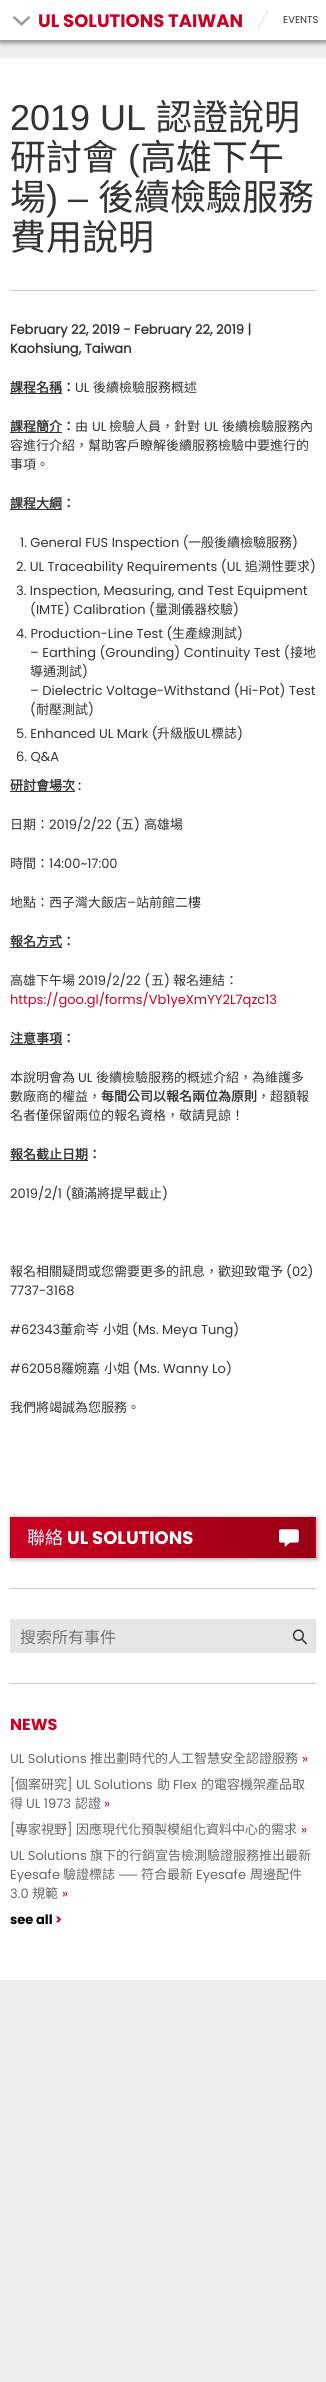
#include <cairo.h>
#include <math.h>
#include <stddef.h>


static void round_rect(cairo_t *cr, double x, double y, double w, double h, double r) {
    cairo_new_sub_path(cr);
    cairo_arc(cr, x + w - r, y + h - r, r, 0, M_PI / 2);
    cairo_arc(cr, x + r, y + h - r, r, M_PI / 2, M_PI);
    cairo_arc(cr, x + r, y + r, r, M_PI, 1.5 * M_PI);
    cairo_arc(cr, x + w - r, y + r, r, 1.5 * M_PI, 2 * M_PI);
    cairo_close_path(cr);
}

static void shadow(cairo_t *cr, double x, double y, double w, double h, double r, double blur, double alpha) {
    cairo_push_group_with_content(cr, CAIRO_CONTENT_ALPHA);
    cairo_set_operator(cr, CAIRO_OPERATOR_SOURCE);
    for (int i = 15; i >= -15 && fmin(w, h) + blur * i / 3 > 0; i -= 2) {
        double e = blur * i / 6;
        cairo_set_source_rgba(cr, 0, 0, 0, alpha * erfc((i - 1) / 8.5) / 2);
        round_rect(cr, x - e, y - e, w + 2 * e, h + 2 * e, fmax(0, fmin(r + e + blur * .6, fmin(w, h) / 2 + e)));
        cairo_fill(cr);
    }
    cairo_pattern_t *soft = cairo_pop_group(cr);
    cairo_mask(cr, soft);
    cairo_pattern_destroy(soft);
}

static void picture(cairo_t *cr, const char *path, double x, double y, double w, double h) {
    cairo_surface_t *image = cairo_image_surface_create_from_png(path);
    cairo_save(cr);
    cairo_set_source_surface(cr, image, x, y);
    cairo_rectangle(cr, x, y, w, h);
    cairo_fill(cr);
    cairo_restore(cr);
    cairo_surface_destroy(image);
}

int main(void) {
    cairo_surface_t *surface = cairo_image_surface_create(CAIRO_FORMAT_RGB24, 326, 2382);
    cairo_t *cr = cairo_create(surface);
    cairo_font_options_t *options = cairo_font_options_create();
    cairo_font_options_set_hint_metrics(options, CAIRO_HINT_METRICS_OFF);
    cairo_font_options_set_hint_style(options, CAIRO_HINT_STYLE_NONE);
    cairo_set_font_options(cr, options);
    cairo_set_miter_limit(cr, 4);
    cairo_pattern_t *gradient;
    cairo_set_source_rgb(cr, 0.933, 0.933, 0.933);
    cairo_paint(cr);
    cairo_set_source_rgb(cr, 0.6, 0.6, 0.6);
    shadow(cr, 0, 2, 326, 40, 0, 2.5, 1);
    cairo_set_source_rgb(cr, 1, 1, 1);
    cairo_rectangle(cr, 0, 0, 326, 40);
    cairo_fill(cr);
    cairo_save(cr);
    cairo_rectangle(cr, 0, 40, 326, 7);
    cairo_clip(cr);
    cairo_set_source_rgb(cr, 0.6, 0.6, 0.6);
    shadow(cr, 0, 2, 326, 40, 0, 2.5, 1);
    cairo_restore(cr);
    cairo_set_source_rgb(cr, 0.6, 0.6, 0.6);
    cairo_new_path(cr);
    cairo_move_to(cr, 12.5, 17.5);
    cairo_line_to(cr, 14.5, 16);
    cairo_line_to(cr, 21.5, 22.5);
    cairo_line_to(cr, 28.5, 16);
    cairo_line_to(cr, 30.5, 17.5);
    cairo_line_to(cr, 21.5, 26);
    cairo_close_path(cr);
    cairo_fill(cr);
    cairo_select_font_face(cr, "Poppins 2", CAIRO_FONT_SLANT_NORMAL, CAIRO_FONT_WEIGHT_BOLD);
    cairo_set_font_size(cr, 18);
    cairo_set_source_rgb(cr, 0.792, 0.004, 0.137);
    cairo_move_to(cr, 38, 27);
    cairo_show_text(cr, "UL SOLUTIONS TAIWAN");
    cairo_set_source_rgb(cr, 0.882, 0.882, 0.882);
    cairo_new_path(cr);
    cairo_move_to(cr, 258, 30.5);
    cairo_line_to(cr, 268.5, 10);
    cairo_line_to(cr, 267.5, 9.5);
    cairo_line_to(cr, 257, 30);
    cairo_close_path(cr);
    cairo_fill(cr);
    cairo_select_font_face(cr, "Poppins", CAIRO_FONT_SLANT_NORMAL, CAIRO_FONT_WEIGHT_NORMAL);
    cairo_set_font_size(cr, 10);
    cairo_set_source_rgb(cr, 0.2, 0.2, 0.2);
    cairo_move_to(cr, 283, 23);
    cairo_show_text(cr, "EVENTS");
    cairo_set_source_rgb(cr, 1, 1, 1);
    cairo_rectangle(cr, 0, 58, 326, 1922);
    cairo_fill(cr);
    cairo_set_source_rgb(cr, 0.8, 0.8, 0.8);
    cairo_rectangle(cr, 10, 290, 306, 1);
    cairo_fill(cr);
    cairo_select_font_face(cr, "Liberation Sans", CAIRO_FONT_SLANT_NORMAL, CAIRO_FONT_WEIGHT_NORMAL);
    cairo_set_font_size(cr, 36);
    cairo_set_source_rgb(cr, 0.2, 0.2, 0.2);
    cairo_move_to(cr, 10, 130);
    cairo_show_text(cr, "2019 UL");
    cairo_select_font_face(cr, "Noto Sans CJK TC", CAIRO_FONT_SLANT_NORMAL, CAIRO_FONT_WEIGHT_NORMAL);
    cairo_move_to(cr, 156, 130);
    cairo_show_text(cr, "認證說明");
    cairo_move_to(cr, 10, 170);
    cairo_show_text(cr, "研討會");
    cairo_select_font_face(cr, "Liberation Sans", CAIRO_FONT_SLANT_NORMAL, CAIRO_FONT_WEIGHT_NORMAL);
    cairo_move_to(cr, 128, 170);
    cairo_show_text(cr, "(");
    cairo_select_font_face(cr, "Noto Sans CJK TC", CAIRO_FONT_SLANT_NORMAL, CAIRO_FONT_WEIGHT_NORMAL);
    cairo_move_to(cr, 140, 170);
    cairo_show_text(cr, "高雄下午");
    cairo_move_to(cr, 10, 210);
    cairo_show_text(cr, "場");
    cairo_select_font_face(cr, "Liberation Sans", CAIRO_FONT_SLANT_NORMAL, CAIRO_FONT_WEIGHT_NORMAL);
    cairo_move_to(cr, 46, 210);
    cairo_show_text(cr, ") –");
    cairo_select_font_face(cr, "Noto Sans CJK TC", CAIRO_FONT_SLANT_NORMAL, CAIRO_FONT_WEIGHT_NORMAL);
    cairo_move_to(cr, 98, 210);
    cairo_show_text(cr, "後續檢驗服務");
    cairo_move_to(cr, 10, 250);
    cairo_show_text(cr, "費用說明");
    cairo_select_font_face(cr, "Poppins", CAIRO_FONT_SLANT_NORMAL, CAIRO_FONT_WEIGHT_BOLD);
    cairo_set_font_size(cr, 13);
    cairo_move_to(cr, 10, 334);
    cairo_show_text(cr, "February 22, 2019 - February 22, 2019 |");
    cairo_move_to(cr, 10, 353);
    cairo_show_text(cr, "Kaohsiung, Taiwan");
    cairo_rectangle(cr, 10, 393, 52, 1);
    cairo_fill(cr);
    cairo_select_font_face(cr, "Noto Sans CJK TC", CAIRO_FONT_SLANT_NORMAL, CAIRO_FONT_WEIGHT_BOLD);
    cairo_move_to(cr, 10, 392);
    cairo_show_text(cr, "課程名稱：");
    cairo_select_font_face(cr, "Poppins", CAIRO_FONT_SLANT_NORMAL, CAIRO_FONT_WEIGHT_NORMAL);
    cairo_move_to(cr, 75, 392);
    cairo_show_text(cr, "UL");
    cairo_select_font_face(cr, "Noto Sans CJK TC", CAIRO_FONT_SLANT_NORMAL, CAIRO_FONT_WEIGHT_NORMAL);
    cairo_move_to(cr, 93, 392);
    cairo_show_text(cr, "後續檢驗服務概述");
    cairo_rectangle(cr, 10, 432, 52, 1);
    cairo_fill(cr);
    cairo_select_font_face(cr, "Noto Sans CJK TC", CAIRO_FONT_SLANT_NORMAL, CAIRO_FONT_WEIGHT_BOLD);
    cairo_move_to(cr, 10, 431);
    cairo_show_text(cr, "課程簡介：");
    cairo_select_font_face(cr, "Noto Sans CJK TC", CAIRO_FONT_SLANT_NORMAL, CAIRO_FONT_WEIGHT_NORMAL);
    cairo_move_to(cr, 75, 431);
    cairo_show_text(cr, "由");
    cairo_select_font_face(cr, "Poppins", CAIRO_FONT_SLANT_NORMAL, CAIRO_FONT_WEIGHT_NORMAL);
    cairo_move_to(cr, 92, 431);
    cairo_show_text(cr, "UL");
    cairo_select_font_face(cr, "Noto Sans CJK TC", CAIRO_FONT_SLANT_NORMAL, CAIRO_FONT_WEIGHT_NORMAL);
    cairo_move_to(cr, 109, 431);
    cairo_show_text(cr, "檢驗人員，針對");
    cairo_select_font_face(cr, "Poppins", CAIRO_FONT_SLANT_NORMAL, CAIRO_FONT_WEIGHT_NORMAL);
    cairo_move_to(cr, 204, 431);
    cairo_show_text(cr, "UL");
    cairo_select_font_face(cr, "Noto Sans CJK TC", CAIRO_FONT_SLANT_NORMAL, CAIRO_FONT_WEIGHT_NORMAL);
    cairo_move_to(cr, 222, 431);
    cairo_show_text(cr, "後續檢驗服務內");
    cairo_move_to(cr, 10, 450);
    cairo_show_text(cr, "容進行介紹，幫助客戶瞭解後續服務檢驗中要進行的");
    cairo_move_to(cr, 10, 469);
    cairo_show_text(cr, "事項。");
    cairo_rectangle(cr, 10, 509, 52, 1);
    cairo_fill(cr);
    cairo_select_font_face(cr, "Noto Sans CJK TC", CAIRO_FONT_SLANT_NORMAL, CAIRO_FONT_WEIGHT_BOLD);
    cairo_move_to(cr, 10, 508);
    cairo_show_text(cr, "課程大綱：");
    cairo_select_font_face(cr, "Poppins", CAIRO_FONT_SLANT_NORMAL, CAIRO_FONT_WEIGHT_NORMAL);
    cairo_move_to(cr, 20, 547);
    cairo_show_text(cr, "1. General FUS Inspection (");
    cairo_select_font_face(cr, "Noto Sans CJK TC", CAIRO_FONT_SLANT_NORMAL, CAIRO_FONT_WEIGHT_NORMAL);
    cairo_move_to(cr, 188, 547);
    cairo_show_text(cr, "一般後續檢驗服務");
    cairo_select_font_face(cr, "Poppins", CAIRO_FONT_SLANT_NORMAL, CAIRO_FONT_WEIGHT_NORMAL);
    cairo_move_to(cr, 292, 547);
    cairo_show_text(cr, ")");
    cairo_move_to(cr, 16, 571);
    cairo_show_text(cr, "2. UL Traceability Requirements (UL");
    cairo_select_font_face(cr, "Noto Sans CJK TC", CAIRO_FONT_SLANT_NORMAL, CAIRO_FONT_WEIGHT_NORMAL);
    cairo_move_to(cr, 245, 571);
    cairo_show_text(cr, "追溯性要求");
    cairo_select_font_face(cr, "Poppins", CAIRO_FONT_SLANT_NORMAL, CAIRO_FONT_WEIGHT_NORMAL);
    cairo_move_to(cr, 310, 571);
    cairo_show_text(cr, ")");
    cairo_move_to(cr, 16, 595);
    cairo_show_text(cr, "3. Inspection, Measuring, and Test Equipment");
    cairo_move_to(cr, 30, 614);
    cairo_show_text(cr, "(IMTE) Calibration (");
    cairo_select_font_face(cr, "Noto Sans CJK TC", CAIRO_FONT_SLANT_NORMAL, CAIRO_FONT_WEIGHT_NORMAL);
    cairo_move_to(cr, 155, 614);
    cairo_show_text(cr, "量測儀器校驗");
    cairo_select_font_face(cr, "Poppins", CAIRO_FONT_SLANT_NORMAL, CAIRO_FONT_WEIGHT_NORMAL);
    cairo_move_to(cr, 233, 614);
    cairo_show_text(cr, ")");
    cairo_move_to(cr, 16, 638);
    cairo_show_text(cr, "4. Production-Line Test (");
    cairo_select_font_face(cr, "Noto Sans CJK TC", CAIRO_FONT_SLANT_NORMAL, CAIRO_FONT_WEIGHT_NORMAL);
    cairo_move_to(cr, 172, 638);
    cairo_show_text(cr, "生產線測試");
    cairo_select_font_face(cr, "Poppins", CAIRO_FONT_SLANT_NORMAL, CAIRO_FONT_WEIGHT_NORMAL);
    cairo_move_to(cr, 237, 638);
    cairo_show_text(cr, ")");
    cairo_move_to(cr, 30, 657);
    cairo_show_text(cr, "– Earthing (Grounding) Continuity Test (");
    cairo_select_font_face(cr, "Noto Sans CJK TC", CAIRO_FONT_SLANT_NORMAL, CAIRO_FONT_WEIGHT_NORMAL);
    cairo_move_to(cr, 290, 657);
    cairo_show_text(cr, "接地");
    cairo_move_to(cr, 30, 676);
    cairo_show_text(cr, "導通測試");
    cairo_select_font_face(cr, "Poppins", CAIRO_FONT_SLANT_NORMAL, CAIRO_FONT_WEIGHT_NORMAL);
    cairo_move_to(cr, 82, 676);
    cairo_show_text(cr, ")");
    cairo_move_to(cr, 30, 695);
    cairo_show_text(cr, "– Dielectric Voltage-Withstand (Hi-Pot) Test");
    cairo_move_to(cr, 30, 714);
    cairo_show_text(cr, "(");
    cairo_select_font_face(cr, "Noto Sans CJK TC", CAIRO_FONT_SLANT_NORMAL, CAIRO_FONT_WEIGHT_NORMAL);
    cairo_move_to(cr, 36, 714);
    cairo_show_text(cr, "耐壓測試");
    cairo_select_font_face(cr, "Poppins", CAIRO_FONT_SLANT_NORMAL, CAIRO_FONT_WEIGHT_NORMAL);
    cairo_move_to(cr, 88, 714);
    cairo_show_text(cr, ")");
    cairo_move_to(cr, 16, 738);
    cairo_show_text(cr, "5. Enhanced UL Mark (");
    cairo_select_font_face(cr, "Noto Sans CJK TC", CAIRO_FONT_SLANT_NORMAL, CAIRO_FONT_WEIGHT_NORMAL);
    cairo_move_to(cr, 157, 738);
    cairo_show_text(cr, "升級版");
    cairo_select_font_face(cr, "Poppins", CAIRO_FONT_SLANT_NORMAL, CAIRO_FONT_WEIGHT_NORMAL);
    cairo_move_to(cr, 196, 738);
    cairo_show_text(cr, "UL");
    cairo_select_font_face(cr, "Noto Sans CJK TC", CAIRO_FONT_SLANT_NORMAL, CAIRO_FONT_WEIGHT_NORMAL);
    cairo_move_to(cr, 211, 738);
    cairo_show_text(cr, "標誌");
    cairo_select_font_face(cr, "Poppins", CAIRO_FONT_SLANT_NORMAL, CAIRO_FONT_WEIGHT_NORMAL);
    cairo_move_to(cr, 237, 738);
    cairo_show_text(cr, ")");
    cairo_move_to(cr, 16, 761);
    cairo_show_text(cr, "6. Q&A");
    cairo_rectangle(cr, 10, 791, 65, 1);
    cairo_fill(cr);
    cairo_select_font_face(cr, "Noto Sans CJK TC", CAIRO_FONT_SLANT_NORMAL, CAIRO_FONT_WEIGHT_BOLD);
    cairo_move_to(cr, 10, 790);
    cairo_show_text(cr, "研討會場次");
    cairo_select_font_face(cr, "Poppins", CAIRO_FONT_SLANT_NORMAL, CAIRO_FONT_WEIGHT_BOLD);
    cairo_move_to(cr, 78, 790);
    cairo_show_text(cr, ":");
    cairo_select_font_face(cr, "Noto Sans CJK TC", CAIRO_FONT_SLANT_NORMAL, CAIRO_FONT_WEIGHT_NORMAL);
    cairo_move_to(cr, 10, 829);
    cairo_show_text(cr, "日期：");
    cairo_select_font_face(cr, "Poppins", CAIRO_FONT_SLANT_NORMAL, CAIRO_FONT_WEIGHT_NORMAL);
    cairo_move_to(cr, 49, 829);
    cairo_show_text(cr, "2019/2/22 (");
    cairo_select_font_face(cr, "Noto Sans CJK TC", CAIRO_FONT_SLANT_NORMAL, CAIRO_FONT_WEIGHT_NORMAL);
    cairo_move_to(cr, 121, 829);
    cairo_show_text(cr, "五");
    cairo_select_font_face(cr, "Poppins", CAIRO_FONT_SLANT_NORMAL, CAIRO_FONT_WEIGHT_NORMAL);
    cairo_move_to(cr, 134, 829);
    cairo_show_text(cr, ")");
    cairo_select_font_face(cr, "Noto Sans CJK TC", CAIRO_FONT_SLANT_NORMAL, CAIRO_FONT_WEIGHT_NORMAL);
    cairo_move_to(cr, 144, 829);
    cairo_show_text(cr, "高雄場");
    cairo_move_to(cr, 10, 868);
    cairo_show_text(cr, "時間：");
    cairo_select_font_face(cr, "Poppins", CAIRO_FONT_SLANT_NORMAL, CAIRO_FONT_WEIGHT_NORMAL);
    cairo_move_to(cr, 49, 868);
    cairo_show_text(cr, "14:00~17:00");
    cairo_select_font_face(cr, "Noto Sans CJK TC", CAIRO_FONT_SLANT_NORMAL, CAIRO_FONT_WEIGHT_NORMAL);
    cairo_move_to(cr, 10, 907);
    cairo_show_text(cr, "地點：西子灣大飯店");
    cairo_select_font_face(cr, "Poppins", CAIRO_FONT_SLANT_NORMAL, CAIRO_FONT_WEIGHT_NORMAL);
    cairo_move_to(cr, 127, 907);
    cairo_show_text(cr, "–");
    cairo_select_font_face(cr, "Noto Sans CJK TC", CAIRO_FONT_SLANT_NORMAL, CAIRO_FONT_WEIGHT_NORMAL);
    cairo_move_to(cr, 136, 907);
    cairo_show_text(cr, "站前館二樓");
    cairo_rectangle(cr, 10, 947, 52, 1);
    cairo_fill(cr);
    cairo_select_font_face(cr, "Noto Sans CJK TC", CAIRO_FONT_SLANT_NORMAL, CAIRO_FONT_WEIGHT_BOLD);
    cairo_move_to(cr, 10, 946);
    cairo_show_text(cr, "報名方式：");
    cairo_select_font_face(cr, "Noto Sans CJK TC", CAIRO_FONT_SLANT_NORMAL, CAIRO_FONT_WEIGHT_NORMAL);
    cairo_move_to(cr, 10, 985);
    cairo_show_text(cr, "高雄下午場");
    cairo_select_font_face(cr, "Poppins", CAIRO_FONT_SLANT_NORMAL, CAIRO_FONT_WEIGHT_NORMAL);
    cairo_move_to(cr, 78, 985);
    cairo_show_text(cr, "2019/2/22 (");
    cairo_select_font_face(cr, "Noto Sans CJK TC", CAIRO_FONT_SLANT_NORMAL, CAIRO_FONT_WEIGHT_NORMAL);
    cairo_move_to(cr, 151, 985);
    cairo_show_text(cr, "五");
    cairo_select_font_face(cr, "Poppins", CAIRO_FONT_SLANT_NORMAL, CAIRO_FONT_WEIGHT_NORMAL);
    cairo_move_to(cr, 164, 985);
    cairo_show_text(cr, ")");
    cairo_select_font_face(cr, "Noto Sans CJK TC", CAIRO_FONT_SLANT_NORMAL, CAIRO_FONT_WEIGHT_NORMAL);
    cairo_move_to(cr, 173, 985);
    cairo_show_text(cr, "報名連結：");
    cairo_select_font_face(cr, "Poppins", CAIRO_FONT_SLANT_NORMAL, CAIRO_FONT_WEIGHT_NORMAL);
    cairo_set_source_rgb(cr, 0.792, 0.004, 0.137);
    cairo_move_to(cr, 10, 1004);
    cairo_show_text(cr, "https://goo.gl/forms/Vb1yeXmYY2L7qzc13");
    cairo_set_source_rgb(cr, 0.2, 0.2, 0.2);
    cairo_rectangle(cr, 10, 1044, 52, 1);
    cairo_fill(cr);
    cairo_select_font_face(cr, "Noto Sans CJK TC", CAIRO_FONT_SLANT_NORMAL, CAIRO_FONT_WEIGHT_BOLD);
    cairo_move_to(cr, 10, 1043);
    cairo_show_text(cr, "注意事項：");
    cairo_select_font_face(cr, "Noto Sans CJK TC", CAIRO_FONT_SLANT_NORMAL, CAIRO_FONT_WEIGHT_NORMAL);
    cairo_move_to(cr, 10, 1082);
    cairo_show_text(cr, "本說明會為");
    cairo_select_font_face(cr, "Poppins", CAIRO_FONT_SLANT_NORMAL, CAIRO_FONT_WEIGHT_NORMAL);
    cairo_move_to(cr, 78, 1082);
    cairo_show_text(cr, "UL");
    cairo_select_font_face(cr, "Noto Sans CJK TC", CAIRO_FONT_SLANT_NORMAL, CAIRO_FONT_WEIGHT_NORMAL);
    cairo_move_to(cr, 96, 1082);
    cairo_show_text(cr, "後續檢驗服務的概述介紹，為維護多");
    cairo_move_to(cr, 10, 1101);
    cairo_show_text(cr, "數廠商的權益，");
    cairo_select_font_face(cr, "Noto Sans CJK TC", CAIRO_FONT_SLANT_NORMAL, CAIRO_FONT_WEIGHT_BOLD);
    cairo_move_to(cr, 101, 1101);
    cairo_show_text(cr, "每間公司以報名兩位為原則");
    cairo_select_font_face(cr, "Noto Sans CJK TC", CAIRO_FONT_SLANT_NORMAL, CAIRO_FONT_WEIGHT_NORMAL);
    cairo_move_to(cr, 257, 1101);
    cairo_show_text(cr, "，超額報");
    cairo_move_to(cr, 10, 1120);
    cairo_show_text(cr, "名者僅保留兩位的報名資格，敬請見諒！");
    cairo_rectangle(cr, 10, 1160, 78, 1);
    cairo_fill(cr);
    cairo_select_font_face(cr, "Noto Sans CJK TC", CAIRO_FONT_SLANT_NORMAL, CAIRO_FONT_WEIGHT_BOLD);
    cairo_move_to(cr, 10, 1159);
    cairo_show_text(cr, "報名截止日期：");
    cairo_select_font_face(cr, "Poppins", CAIRO_FONT_SLANT_NORMAL, CAIRO_FONT_WEIGHT_NORMAL);
    cairo_move_to(cr, 10, 1198);
    cairo_show_text(cr, "2019/2/1 (");
    cairo_select_font_face(cr, "Noto Sans CJK TC", CAIRO_FONT_SLANT_NORMAL, CAIRO_FONT_WEIGHT_NORMAL);
    cairo_move_to(cr, 71, 1198);
    cairo_show_text(cr, "額滿將提早截止");
    cairo_select_font_face(cr, "Poppins", CAIRO_FONT_SLANT_NORMAL, CAIRO_FONT_WEIGHT_NORMAL);
    cairo_move_to(cr, 162, 1198);
    cairo_show_text(cr, ")");
    cairo_select_font_face(cr, "Noto Sans CJK TC", CAIRO_FONT_SLANT_NORMAL, CAIRO_FONT_WEIGHT_NORMAL);
    cairo_move_to(cr, 10, 1276);
    cairo_show_text(cr, "報名相關疑問或您需要更多的訊息，歡迎致電予");
    cairo_select_font_face(cr, "Poppins", CAIRO_FONT_SLANT_NORMAL, CAIRO_FONT_WEIGHT_NORMAL);
    cairo_move_to(cr, 286, 1276);
    cairo_show_text(cr, "(02)");
    cairo_move_to(cr, 10, 1295);
    cairo_show_text(cr, "7737-3168");
    cairo_move_to(cr, 10, 1334);
    cairo_show_text(cr, "#62343");
    cairo_select_font_face(cr, "Noto Sans CJK TC", CAIRO_FONT_SLANT_NORMAL, CAIRO_FONT_WEIGHT_NORMAL);
    cairo_move_to(cr, 60, 1334);
    cairo_show_text(cr, "董俞岑");
    cairo_move_to(cr, 103, 1334);
    cairo_show_text(cr, "小姐");
    cairo_select_font_face(cr, "Poppins", CAIRO_FONT_SLANT_NORMAL, CAIRO_FONT_WEIGHT_NORMAL);
    cairo_move_to(cr, 132, 1334);
    cairo_show_text(cr, "(Ms. Meya Tung)");
    cairo_move_to(cr, 10, 1373);
    cairo_show_text(cr, "#62058");
    cairo_select_font_face(cr, "Noto Sans CJK TC", CAIRO_FONT_SLANT_NORMAL, CAIRO_FONT_WEIGHT_NORMAL);
    cairo_move_to(cr, 61, 1373);
    cairo_show_text(cr, "羅婉嘉");
    cairo_move_to(cr, 104, 1373);
    cairo_show_text(cr, "小姐");
    cairo_select_font_face(cr, "Poppins", CAIRO_FONT_SLANT_NORMAL, CAIRO_FONT_WEIGHT_NORMAL);
    cairo_move_to(cr, 133, 1373);
    cairo_show_text(cr, "(Ms. Wanny Lo)");
    cairo_select_font_face(cr, "Noto Sans CJK TC", CAIRO_FONT_SLANT_NORMAL, CAIRO_FONT_WEIGHT_NORMAL);
    cairo_move_to(cr, 10, 1412);
    cairo_show_text(cr, "我們將竭誠為您服務。");
    cairo_set_source_rgb(cr, 0.6, 0.6, 0.6);
    shadow(cr, 11, 1518, 306, 41, 0, 2.5, 1);
    gradient = cairo_pattern_create_linear(-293, 1538, 11, 1538);
    cairo_pattern_add_color_stop_rgba(gradient, 0, 0.792, 0.004, 0.137, 1);
    cairo_pattern_add_color_stop_rgba(gradient, 1, 0.604, 0, 0.082, 1);
    cairo_set_source(cr, gradient);
    cairo_pattern_destroy(gradient);
    cairo_rectangle(cr, 10, 1517, 1, 41);
    cairo_fill(cr);
    gradient = cairo_pattern_create_linear(11, 1538, 315, 1538);
    cairo_pattern_add_color_stop_rgba(gradient, 0, 0.792, 0.004, 0.137, 1);
    cairo_pattern_add_color_stop_rgba(gradient, 1, 0.604, 0, 0.082, 1);
    cairo_set_source(cr, gradient);
    cairo_pattern_destroy(gradient);
    cairo_rectangle(cr, 11, 1517, 304, 41);
    cairo_fill(cr);
    gradient = cairo_pattern_create_linear(315, 1538, 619, 1538);
    cairo_pattern_add_color_stop_rgba(gradient, 0, 0.792, 0.004, 0.137, 1);
    cairo_pattern_add_color_stop_rgba(gradient, 1, 0.604, 0, 0.082, 1);
    cairo_set_source(cr, gradient);
    cairo_pattern_destroy(gradient);
    cairo_rectangle(cr, 315, 1517, 1, 41);
    cairo_fill(cr);
    cairo_set_font_size(cr, 18);
    cairo_set_source_rgb(cr, 1, 1, 1);
    cairo_move_to(cr, 27, 1544);
    cairo_show_text(cr, "聯絡");
    cairo_select_font_face(cr, "Poppins 2", CAIRO_FONT_SLANT_NORMAL, CAIRO_FONT_WEIGHT_BOLD);
    cairo_move_to(cr, 67, 1544);
    cairo_show_text(cr, "UL SOLUTIONS");
    picture(cr, "img1.png", 279, 1529, 20, 18);
    cairo_set_source_rgb(cr, 0.8, 0.8, 0.8);
    cairo_rectangle(cr, 10, 1588, 306, 1);
    cairo_fill(cr);
    cairo_set_source_rgb(cr, 0.902, 0.902, 0.902);
    cairo_rectangle(cr, 10, 1619, 306, 34);
    cairo_fill(cr);
    cairo_select_font_face(cr, "Noto Sans CJK TC", CAIRO_FONT_SLANT_NORMAL, CAIRO_FONT_WEIGHT_NORMAL);
    cairo_set_font_size(cr, 16);
    cairo_set_source_rgb(cr, 0.459, 0.459, 0.459);
    cairo_move_to(cr, 20, 1643);
    cairo_show_text(cr, "搜索所有事件");
    picture(cr, "img2.png", 292, 1629, 15, 16);
    cairo_set_source_rgb(cr, 0.8, 0.8, 0.8);
    cairo_rectangle(cr, 10, 1683, 306, 1);
    cairo_fill(cr);
    cairo_select_font_face(cr, "Poppins 2", CAIRO_FONT_SLANT_NORMAL, CAIRO_FONT_WEIGHT_BOLD);
    cairo_set_source_rgb(cr, 0.792, 0.004, 0.137);
    cairo_move_to(cr, 10, 1730);
    cairo_show_text(cr, "NEWS");
    cairo_select_font_face(cr, "Poppins", CAIRO_FONT_SLANT_NORMAL, CAIRO_FONT_WEIGHT_NORMAL);
    cairo_set_font_size(cr, 13);
    cairo_set_source_rgb(cr, 0.4, 0.4, 0.4);
    cairo_move_to(cr, 10, 1763);
    cairo_show_text(cr, "UL Solutions");
    cairo_select_font_face(cr, "Noto Sans CJK TC", CAIRO_FONT_SLANT_NORMAL, CAIRO_FONT_WEIGHT_NORMAL);
    cairo_move_to(cr, 90, 1763);
    cairo_show_text(cr, "推出劃時代的人工智慧安全認證服務");
    cairo_select_font_face(cr, "Poppins", CAIRO_FONT_SLANT_NORMAL, CAIRO_FONT_WEIGHT_NORMAL);
    cairo_set_source_rgb(cr, 0.792, 0.004, 0.137);
    cairo_move_to(cr, 302, 1763);
    cairo_show_text(cr, "»");
    cairo_set_source_rgb(cr, 0.4, 0.4, 0.4);
    cairo_move_to(cr, 10, 1789);
    cairo_show_text(cr, "[");
    cairo_select_font_face(cr, "Noto Sans CJK TC", CAIRO_FONT_SLANT_NORMAL, CAIRO_FONT_WEIGHT_NORMAL);
    cairo_move_to(cr, 15, 1789);
    cairo_show_text(cr, "個案研究");
    cairo_select_font_face(cr, "Poppins", CAIRO_FONT_SLANT_NORMAL, CAIRO_FONT_WEIGHT_NORMAL);
    cairo_move_to(cr, 67, 1789);
    cairo_show_text(cr, "] UL Solutions");
    cairo_select_font_face(cr, "Noto Sans CJK TC", CAIRO_FONT_SLANT_NORMAL, CAIRO_FONT_WEIGHT_NORMAL);
    cairo_move_to(cr, 157, 1789);
    cairo_show_text(cr, "助");
    cairo_select_font_face(cr, "Poppins", CAIRO_FONT_SLANT_NORMAL, CAIRO_FONT_WEIGHT_NORMAL);
    cairo_move_to(cr, 173, 1789);
    cairo_show_text(cr, "Flex");
    cairo_select_font_face(cr, "Noto Sans CJK TC", CAIRO_FONT_SLANT_NORMAL, CAIRO_FONT_WEIGHT_NORMAL);
    cairo_move_to(cr, 201, 1789);
    cairo_show_text(cr, "的電容機架產品取");
    cairo_move_to(cr, 10, 1808);
    cairo_show_text(cr, "得");
    cairo_select_font_face(cr, "Poppins", CAIRO_FONT_SLANT_NORMAL, CAIRO_FONT_WEIGHT_NORMAL);
    cairo_move_to(cr, 26, 1808);
    cairo_show_text(cr, "UL 1973");
    cairo_select_font_face(cr, "Noto Sans CJK TC", CAIRO_FONT_SLANT_NORMAL, CAIRO_FONT_WEIGHT_NORMAL);
    cairo_move_to(cr, 75, 1808);
    cairo_show_text(cr, "認證");
    cairo_select_font_face(cr, "Poppins", CAIRO_FONT_SLANT_NORMAL, CAIRO_FONT_WEIGHT_NORMAL);
    cairo_set_source_rgb(cr, 0.792, 0.004, 0.137);
    cairo_move_to(cr, 104, 1808);
    cairo_show_text(cr, "»");
    cairo_set_source_rgb(cr, 0.4, 0.4, 0.4);
    cairo_move_to(cr, 10, 1834);
    cairo_show_text(cr, "[");
    cairo_select_font_face(cr, "Noto Sans CJK TC", CAIRO_FONT_SLANT_NORMAL, CAIRO_FONT_WEIGHT_NORMAL);
    cairo_move_to(cr, 15, 1834);
    cairo_show_text(cr, "專家視野");
    cairo_select_font_face(cr, "Poppins", CAIRO_FONT_SLANT_NORMAL, CAIRO_FONT_WEIGHT_NORMAL);
    cairo_move_to(cr, 67, 1834);
    cairo_show_text(cr, "]");
    cairo_select_font_face(cr, "Noto Sans CJK TC", CAIRO_FONT_SLANT_NORMAL, CAIRO_FONT_WEIGHT_NORMAL);
    cairo_move_to(cr, 76, 1834);
    cairo_show_text(cr, "因應現代化預製模組化資料中心的需求");
    cairo_select_font_face(cr, "Poppins", CAIRO_FONT_SLANT_NORMAL, CAIRO_FONT_WEIGHT_NORMAL);
    cairo_set_source_rgb(cr, 0.792, 0.004, 0.137);
    cairo_move_to(cr, 301, 1834);
    cairo_show_text(cr, "»");
    cairo_set_source_rgb(cr, 0.4, 0.4, 0.4);
    cairo_move_to(cr, 10, 1860);
    cairo_show_text(cr, "UL Solutions");
    cairo_select_font_face(cr, "Noto Sans CJK TC", CAIRO_FONT_SLANT_NORMAL, CAIRO_FONT_WEIGHT_NORMAL);
    cairo_move_to(cr, 90, 1860);
    cairo_show_text(cr, "旗下的行銷宣告檢測驗證服務推出最新");
    cairo_select_font_face(cr, "Poppins", CAIRO_FONT_SLANT_NORMAL, CAIRO_FONT_WEIGHT_NORMAL);
    cairo_move_to(cr, 10, 1879);
    cairo_show_text(cr, "Eyesafe");
    cairo_select_font_face(cr, "Noto Sans CJK TC", CAIRO_FONT_SLANT_NORMAL, CAIRO_FONT_WEIGHT_NORMAL);
    cairo_move_to(cr, 63, 1879);
    cairo_show_text(cr, "驗證標誌");
    cairo_select_font_face(cr, "Liberation Sans", CAIRO_FONT_SLANT_NORMAL, CAIRO_FONT_WEIGHT_NORMAL);
    cairo_move_to(cr, 119, 1879);
    cairo_show_text(cr, "──");
    cairo_select_font_face(cr, "Noto Sans CJK TC", CAIRO_FONT_SLANT_NORMAL, CAIRO_FONT_WEIGHT_NORMAL);
    cairo_move_to(cr, 141, 1879);
    cairo_show_text(cr, "符合最新");
    cairo_select_font_face(cr, "Poppins", CAIRO_FONT_SLANT_NORMAL, CAIRO_FONT_WEIGHT_NORMAL);
    cairo_move_to(cr, 196, 1879);
    cairo_show_text(cr, "Eyesafe");
    cairo_select_font_face(cr, "Noto Sans CJK TC", CAIRO_FONT_SLANT_NORMAL, CAIRO_FONT_WEIGHT_NORMAL);
    cairo_move_to(cr, 250, 1879);
    cairo_show_text(cr, "周邊配件");
    cairo_select_font_face(cr, "Poppins", CAIRO_FONT_SLANT_NORMAL, CAIRO_FONT_WEIGHT_NORMAL);
    cairo_move_to(cr, 10, 1898);
    cairo_show_text(cr, "3.0");
    cairo_select_font_face(cr, "Noto Sans CJK TC", CAIRO_FONT_SLANT_NORMAL, CAIRO_FONT_WEIGHT_NORMAL);
    cairo_move_to(cr, 32, 1898);
    cairo_show_text(cr, "規範");
    cairo_select_font_face(cr, "Poppins", CAIRO_FONT_SLANT_NORMAL, CAIRO_FONT_WEIGHT_NORMAL);
    cairo_set_source_rgb(cr, 0.792, 0.004, 0.137);
    cairo_move_to(cr, 62, 1898);
    cairo_show_text(cr, "»");
    cairo_select_font_face(cr, "Poppins 2", CAIRO_FONT_SLANT_NORMAL, CAIRO_FONT_WEIGHT_BOLD);
    cairo_set_source_rgb(cr, 0, 0, 0);
    cairo_move_to(cr, 10, 1924);
    cairo_show_text(cr, "see all");
    cairo_set_source_rgb(cr, 0.792, 0.004, 0.137);
    cairo_move_to(cr, 55, 1924);
    cairo_show_text(cr, ">");
    cairo_surface_write_to_png(surface, "page.png");
    cairo_font_options_destroy(options);
    cairo_destroy(cr);
    cairo_surface_destroy(surface);
    return 0;
}
